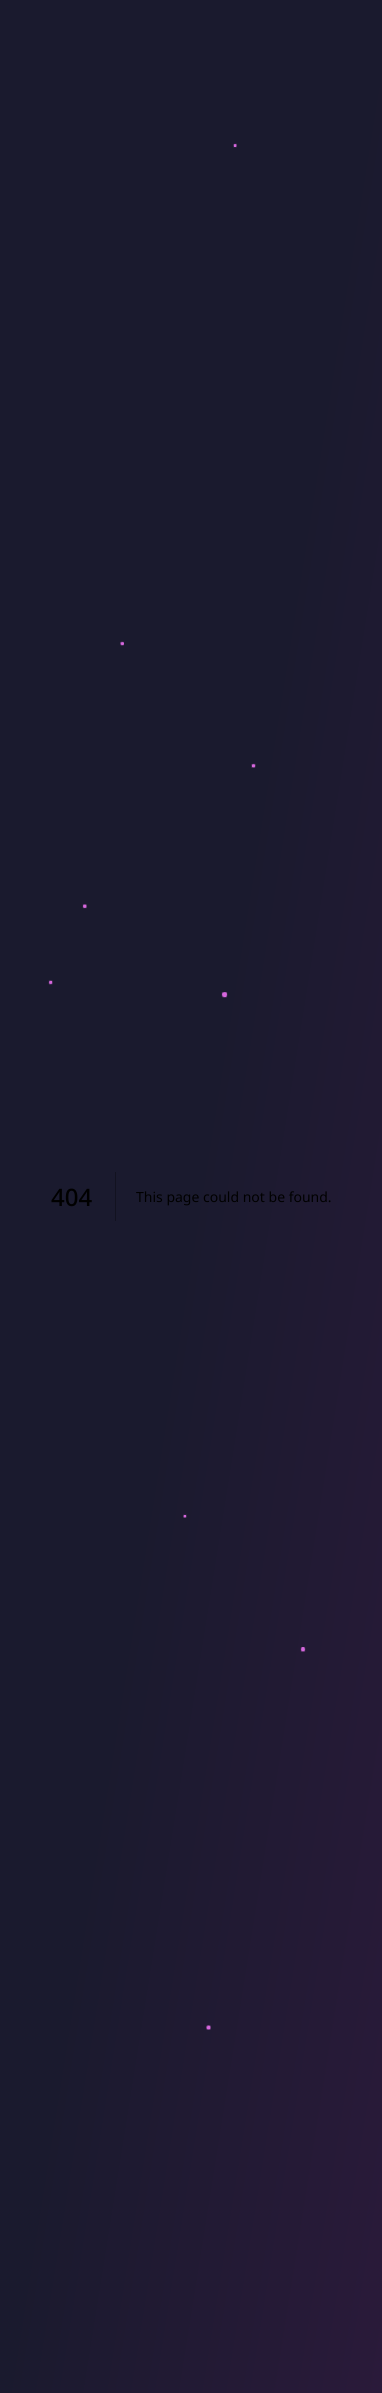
#include <cairo.h>
#include <math.h>
#include <stddef.h>


static void picture(cairo_t *cr, const char *path, double x, double y, double w, double h) {
    cairo_surface_t *image = cairo_image_surface_create_from_png(path);
    cairo_save(cr);
    cairo_set_source_surface(cr, image, x, y);
    cairo_rectangle(cr, x, y, w, h);
    cairo_fill(cr);
    cairo_restore(cr);
    cairo_surface_destroy(image);
}

int main(void) {
    cairo_surface_t *surface = cairo_image_surface_create(CAIRO_FORMAT_RGB24, 382, 2393);
    cairo_t *cr = cairo_create(surface);
    cairo_font_options_t *options = cairo_font_options_create();
    cairo_font_options_set_hint_metrics(options, CAIRO_HINT_METRICS_OFF);
    cairo_font_options_set_hint_style(options, CAIRO_HINT_STYLE_NONE);
    cairo_set_font_options(cr, options);
    cairo_set_miter_limit(cr, 4);
    cairo_pattern_t *gradient;
    cairo_set_source_rgb(cr, 1, 1, 1);
    cairo_paint(cr);
    gradient = cairo_pattern_create_linear(-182, 1137, 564, 1256);
    cairo_pattern_add_color_stop_rgba(gradient, 0, 0.102, 0.102, 0.18, 1);
    cairo_pattern_add_color_stop_rgba(gradient, 0.5, 0.102, 0.102, 0.18, 1);
    cairo_pattern_add_color_stop_rgba(gradient, 1, 0.165, 0.102, 0.227, 1);
    cairo_set_source(cr, gradient);
    cairo_pattern_destroy(gradient);
    cairo_rectangle(cr, 0, 0, 382, 2393);
    cairo_fill(cr);
    picture(cr, "img1.png", 48, 143, 258, 1887);
    cairo_set_source_rgb(cr, 0.071, 0.071, 0.125);
    cairo_rectangle(cr, 115, 1172, 1, 49);
    cairo_fill(cr);
    cairo_select_font_face(cr, "Noto Sans Medium", CAIRO_FONT_SLANT_NORMAL, CAIRO_FONT_WEIGHT_NORMAL);
    cairo_set_font_size(cr, 24);
    cairo_set_source_rgb(cr, 0, 0, 0);
    cairo_move_to(cr, 51, 1206);
    cairo_show_text(cr, "404");
    cairo_select_font_face(cr, "Noto Sans", CAIRO_FONT_SLANT_NORMAL, CAIRO_FONT_WEIGHT_NORMAL);
    cairo_set_font_size(cr, 14);
    cairo_move_to(cr, 136, 1202);
    cairo_show_text(cr, "This page could not be found.");
    cairo_surface_write_to_png(surface, "page.png");
    cairo_font_options_destroy(options);
    cairo_destroy(cr);
    cairo_surface_destroy(surface);
    return 0;
}
